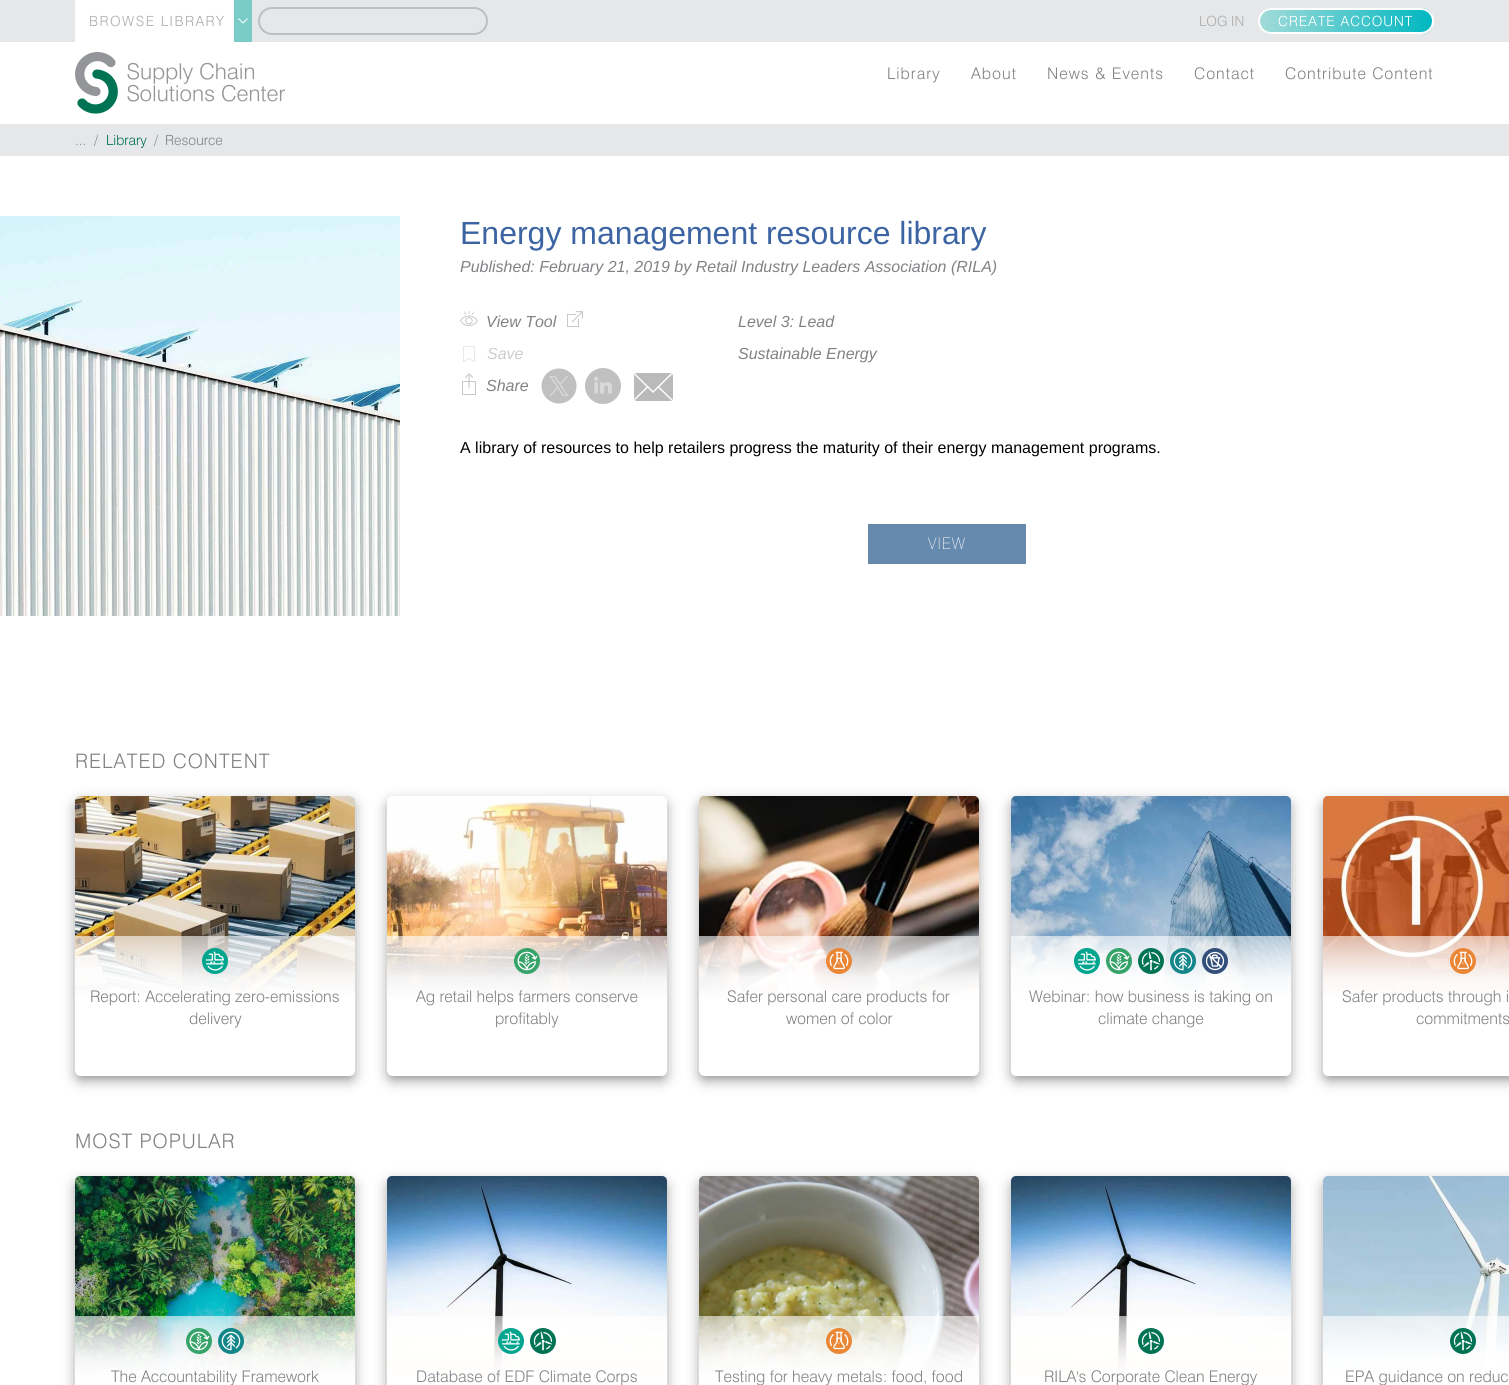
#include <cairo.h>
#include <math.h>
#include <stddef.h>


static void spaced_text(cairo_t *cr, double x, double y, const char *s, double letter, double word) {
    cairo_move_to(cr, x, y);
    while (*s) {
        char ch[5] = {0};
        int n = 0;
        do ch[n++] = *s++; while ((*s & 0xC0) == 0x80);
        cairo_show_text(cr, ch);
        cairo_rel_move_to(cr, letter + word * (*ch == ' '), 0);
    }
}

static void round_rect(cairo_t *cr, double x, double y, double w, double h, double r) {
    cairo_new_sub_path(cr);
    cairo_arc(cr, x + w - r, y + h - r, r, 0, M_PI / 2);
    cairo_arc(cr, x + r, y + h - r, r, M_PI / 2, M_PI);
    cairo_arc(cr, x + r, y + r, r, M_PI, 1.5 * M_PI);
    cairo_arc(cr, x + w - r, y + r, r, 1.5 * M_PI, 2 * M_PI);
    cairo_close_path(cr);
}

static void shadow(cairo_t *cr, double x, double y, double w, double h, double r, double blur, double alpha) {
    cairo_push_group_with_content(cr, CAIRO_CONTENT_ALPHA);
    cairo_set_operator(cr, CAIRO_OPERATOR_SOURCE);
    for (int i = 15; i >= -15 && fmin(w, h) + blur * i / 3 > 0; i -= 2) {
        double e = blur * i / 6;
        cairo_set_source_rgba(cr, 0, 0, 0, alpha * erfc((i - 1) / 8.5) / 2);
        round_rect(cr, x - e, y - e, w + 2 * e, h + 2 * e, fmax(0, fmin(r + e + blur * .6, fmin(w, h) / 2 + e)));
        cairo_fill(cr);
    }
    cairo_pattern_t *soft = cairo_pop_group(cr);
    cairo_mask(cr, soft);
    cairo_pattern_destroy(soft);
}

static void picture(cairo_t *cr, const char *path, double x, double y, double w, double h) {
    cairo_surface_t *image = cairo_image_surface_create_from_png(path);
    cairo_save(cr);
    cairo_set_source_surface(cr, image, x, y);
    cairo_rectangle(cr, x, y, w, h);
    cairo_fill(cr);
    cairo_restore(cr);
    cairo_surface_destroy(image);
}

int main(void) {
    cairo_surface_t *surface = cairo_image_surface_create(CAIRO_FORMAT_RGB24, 1509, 1385);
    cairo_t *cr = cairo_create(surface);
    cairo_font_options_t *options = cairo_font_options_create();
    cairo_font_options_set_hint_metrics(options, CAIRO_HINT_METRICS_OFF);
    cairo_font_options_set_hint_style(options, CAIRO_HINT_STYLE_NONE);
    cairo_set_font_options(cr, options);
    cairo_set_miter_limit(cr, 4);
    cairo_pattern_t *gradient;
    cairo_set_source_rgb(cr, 1, 1, 1);
    cairo_paint(cr);
    cairo_set_source_rgb(cr, 0.902, 0.906, 0.91);
    cairo_rectangle(cr, 0, 0, 1509, 42);
    cairo_fill(cr);
    cairo_set_source_rgb(cr, 1, 1, 1);
    cairo_rectangle(cr, 75, 0, 159, 42);
    cairo_fill(cr);
    cairo_select_font_face(cr, "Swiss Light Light", CAIRO_FONT_SLANT_NORMAL, CAIRO_FONT_WEIGHT_NORMAL);
    cairo_set_font_size(cr, 14);
    cairo_set_source_rgb(cr, 0.675, 0.675, 0.678);
    spaced_text(cr, 89, 26, "BROWSE LIBRARY", 1.5, 0);
    cairo_set_source_rgb(cr, 0.478, 0.8, 0.784);
    cairo_rectangle(cr, 234, 0, 18, 42);
    cairo_fill(cr);
    cairo_new_path(cr);
    cairo_move_to(cr, 247.5, 18.5);
    cairo_line_to(cr, 243, 23);
    cairo_line_to(cr, 238.5, 18.5);
    cairo_set_source_rgb(cr, 1, 1, 1);
    cairo_set_line_width(cr, 1);
    cairo_stroke(cr);
    round_rect(cr, 259, 8, 228, 26, 13);
    cairo_set_source_rgb(cr, 0.737, 0.745, 0.753);
    cairo_set_line_width(cr, 2);
    cairo_stroke(cr);
    cairo_set_source_rgb(cr, 0.675, 0.675, 0.678);
    cairo_move_to(cr, 1199, 26);
    cairo_show_text(cr, "LOG IN");
    cairo_save(cr);
    round_rect(cr, 1258, 8, 176, 26, 13);
    cairo_clip(cr);
    gradient = cairo_pattern_create_linear(1260, 21, 1432, 21);
    cairo_pattern_add_color_stop_rgba(gradient, 0, 0.635, 0.859, 0.851, 1);
    cairo_pattern_add_color_stop_rgba(gradient, 1, 0, 0.718, 0.757, 1);
    cairo_set_source(cr, gradient);
    cairo_pattern_destroy(gradient);
    cairo_rectangle(cr, 1260, 8, 172, 26);
    cairo_fill(cr);
    cairo_restore(cr);
    round_rect(cr, 1259, 9, 174, 24, 12);
    cairo_set_source_rgb(cr, 1, 1, 1);
    cairo_stroke(cr);
    spaced_text(cr, 1278, 26, "CREATE ACCOUNT", 1, 0);
    picture(cr, "img1.png", 75, 52, 210, 62);
    cairo_set_font_size(cr, 16);
    cairo_set_source_rgb(cr, 0.502, 0.51, 0.522);
    spaced_text(cr, 887, 79, "Library", 1, 0);
    spaced_text(cr, 971, 79, "About", 1, 0);
    spaced_text(cr, 1047, 79, "News & Events", 1, 0);
    spaced_text(cr, 1194, 79, "Contact", 1, 0);
    spaced_text(cr, 1285, 79, "Contribute Content", 1, 0);
    cairo_set_source_rgb(cr, 0.902, 0.906, 0.91);
    cairo_rectangle(cr, 0, 124, 1509, 32);
    cairo_fill(cr);
    cairo_set_font_size(cr, 14);
    cairo_set_source_rgb(cr, 0.502, 0.51, 0.522);
    cairo_move_to(cr, 75, 145);
    cairo_show_text(cr, "...");
    cairo_move_to(cr, 94, 145);
    cairo_show_text(cr, "/");
    cairo_set_source_rgb(cr, 0, 0.451, 0.333);
    cairo_move_to(cr, 106, 145);
    cairo_show_text(cr, "Library");
    cairo_set_source_rgb(cr, 0.502, 0.51, 0.522);
    cairo_move_to(cr, 154, 145);
    cairo_show_text(cr, "/");
    cairo_move_to(cr, 165, 145);
    cairo_show_text(cr, "Resource");
    picture(cr, "img2.png", 0, 216, 400, 400);
    cairo_select_font_face(cr, "Liberation Sans", CAIRO_FONT_SLANT_NORMAL, CAIRO_FONT_WEIGHT_NORMAL);
    cairo_set_font_size(cr, 32);
    cairo_set_source_rgb(cr, 0.235, 0.392, 0.639);
    cairo_move_to(cr, 460, 244);
    cairo_show_text(cr, "Energy management resource library");
    cairo_select_font_face(cr, "Liberation Sans", CAIRO_FONT_SLANT_ITALIC, CAIRO_FONT_WEIGHT_NORMAL);
    cairo_set_font_size(cr, 16);
    cairo_set_source_rgb(cr, 0.502, 0.51, 0.522);
    cairo_move_to(cr, 460, 272);
    cairo_show_text(cr, "Published: February 21, 2019 by Retail Industry Leaders Association (RILA)");
    picture(cr, "img3.png", 460, 311, 18, 15);
    cairo_move_to(cr, 486, 327);
    cairo_show_text(cr, "View Tool");
    picture(cr, "img4.png", 567, 311, 16, 16);
    picture(cr, "img5.png", 463, 346, 12, 16);
    cairo_set_source_rgb(cr, 0.8, 0.804, 0.808);
    cairo_move_to(cr, 487, 359);
    cairo_show_text(cr, "Save");
    picture(cr, "img6.png", 462, 373, 14, 22);
    cairo_set_source_rgb(cr, 0.502, 0.51, 0.522);
    cairo_move_to(cr, 486, 391);
    cairo_show_text(cr, "Share");
    picture(cr, "img7.png", 541, 368, 36, 36);
    picture(cr, "img8.png", 585, 368, 36, 36);
    cairo_set_source_rgb(cr, 0.729, 0.729, 0.729);
    round_rect(cr, 634, 373, 39, 28, 3);
    cairo_fill(cr);
    cairo_save(cr);
    round_rect(cr, 634, 373, 39, 28, 4);
    cairo_clip(cr);
    cairo_new_path(cr);
    cairo_move_to(cr, 629.5, 369);
    cairo_line_to(cr, 653, 392);
    cairo_line_to(cr, 676.5, 369);
    cairo_move_to(cr, 631, 403);
    cairo_line_to(cr, 647.5, 387);
    cairo_move_to(cr, 658.5, 387);
    cairo_line_to(cr, 675, 403);
    cairo_set_source_rgb(cr, 1, 1, 1);
    cairo_set_line_width(cr, 1.4);
    cairo_stroke(cr);
    cairo_restore(cr);
    cairo_set_source_rgb(cr, 0.502, 0.51, 0.522);
    cairo_move_to(cr, 738, 327);
    cairo_show_text(cr, "Level 3: Lead");
    cairo_move_to(cr, 738, 359);
    cairo_show_text(cr, "Sustainable Energy");
    cairo_select_font_face(cr, "Liberation Sans", CAIRO_FONT_SLANT_NORMAL, CAIRO_FONT_WEIGHT_NORMAL);
    cairo_set_source_rgb(cr, 0, 0, 0);
    cairo_move_to(cr, 460, 453);
    cairo_show_text(cr, "A library of resources to help retailers progress the maturity of their energy management programs.");
    cairo_set_source_rgb(cr, 0.4, 0.541, 0.682);
    cairo_rectangle(cr, 868, 524, 158, 40);
    cairo_fill(cr);
    cairo_select_font_face(cr, "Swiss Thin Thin", CAIRO_FONT_SLANT_NORMAL, CAIRO_FONT_WEIGHT_NORMAL);
    cairo_set_source_rgb(cr, 1, 1, 1);
    spaced_text(cr, 928, 549, "VIEW", 1, 0);
    cairo_select_font_face(cr, "Swiss Light Light", CAIRO_FONT_SLANT_NORMAL, CAIRO_FONT_WEIGHT_NORMAL);
    cairo_set_font_size(cr, 20);
    cairo_set_source_rgb(cr, 0.502, 0.51, 0.522);
    spaced_text(cr, 75, 768, "RELATED CONTENT", 1, 0);
    cairo_set_source_rgb(cr, 0, 0, 0);
    shadow(cr, 79, 805, 272, 272, 1, 7.5, 0.6);
    picture(cr, "img9.png", 75, 796, 280, 280);
    gradient = cairo_pattern_create_linear(215, 936, 215, 1076);
    cairo_pattern_add_color_stop_rgba(gradient, 0, 1, 1, 1, 0.6);
    cairo_pattern_add_color_stop_rgba(gradient, 0.15, 1, 1, 1, 0.8);
    cairo_pattern_add_color_stop_rgba(gradient, 0.3, 1, 1, 1, 0.95);
    cairo_pattern_add_color_stop_rgba(gradient, 0.45, 1, 1, 1, 1);
    cairo_pattern_add_color_stop_rgba(gradient, 1, 1, 1, 1, 1);
    cairo_set_source(cr, gradient);
    cairo_pattern_destroy(gradient);
    cairo_new_path(cr);
    cairo_move_to(cr, 75, 936);
    cairo_line_to(cr, 355, 936);
    cairo_line_to(cr, 355, 1071);
    cairo_curve_to(cr, 355, 1074, 353, 1076, 350, 1076);
    cairo_line_to(cr, 80, 1076);
    cairo_curve_to(cr, 77, 1076, 75, 1074, 75, 1071);
    cairo_close_path(cr);
    cairo_fill(cr);
    picture(cr, "img10.png", 202, 948, 26, 26);
    cairo_set_font_size(cr, 16);
    cairo_set_source_rgb(cr, 0.502, 0.51, 0.522);
    cairo_move_to(cr, 90, 1002);
    cairo_show_text(cr, "Report: Accelerating zero-emissions");
    cairo_move_to(cr, 189, 1024);
    cairo_show_text(cr, "delivery");
    cairo_set_source_rgb(cr, 0, 0, 0);
    shadow(cr, 391, 805, 272, 272, 1, 7.5, 0.6);
    picture(cr, "img11.png", 387, 796, 280, 280);
    gradient = cairo_pattern_create_linear(527, 936, 527, 1076);
    cairo_pattern_add_color_stop_rgba(gradient, 0, 1, 1, 1, 0.6);
    cairo_pattern_add_color_stop_rgba(gradient, 0.15, 1, 1, 1, 0.8);
    cairo_pattern_add_color_stop_rgba(gradient, 0.3, 1, 1, 1, 0.95);
    cairo_pattern_add_color_stop_rgba(gradient, 0.45, 1, 1, 1, 1);
    cairo_pattern_add_color_stop_rgba(gradient, 1, 1, 1, 1, 1);
    cairo_set_source(cr, gradient);
    cairo_pattern_destroy(gradient);
    cairo_new_path(cr);
    cairo_move_to(cr, 387, 936);
    cairo_line_to(cr, 667, 936);
    cairo_line_to(cr, 667, 1071);
    cairo_curve_to(cr, 667, 1074, 665, 1076, 662, 1076);
    cairo_line_to(cr, 392, 1076);
    cairo_curve_to(cr, 389, 1076, 387, 1074, 387, 1071);
    cairo_close_path(cr);
    cairo_fill(cr);
    picture(cr, "img12.png", 514, 948, 26, 26);
    cairo_set_source_rgb(cr, 0.502, 0.51, 0.522);
    cairo_move_to(cr, 416, 1002);
    cairo_show_text(cr, "Ag retail helps farmers conserve");
    cairo_move_to(cr, 495, 1024);
    cairo_show_text(cr, "profitably");
    cairo_set_source_rgb(cr, 0, 0, 0);
    shadow(cr, 703, 805, 272, 272, 1, 7.5, 0.6);
    picture(cr, "img13.png", 699, 796, 280, 280);
    gradient = cairo_pattern_create_linear(839, 936, 839, 1076);
    cairo_pattern_add_color_stop_rgba(gradient, 0, 1, 1, 1, 0.6);
    cairo_pattern_add_color_stop_rgba(gradient, 0.15, 1, 1, 1, 0.8);
    cairo_pattern_add_color_stop_rgba(gradient, 0.3, 1, 1, 1, 0.95);
    cairo_pattern_add_color_stop_rgba(gradient, 0.45, 1, 1, 1, 1);
    cairo_pattern_add_color_stop_rgba(gradient, 1, 1, 1, 1, 1);
    cairo_set_source(cr, gradient);
    cairo_pattern_destroy(gradient);
    cairo_new_path(cr);
    cairo_move_to(cr, 699, 936);
    cairo_line_to(cr, 979, 936);
    cairo_line_to(cr, 979, 1071);
    cairo_curve_to(cr, 979, 1074, 977, 1076, 974, 1076);
    cairo_line_to(cr, 704, 1076);
    cairo_curve_to(cr, 701, 1076, 699, 1074, 699, 1071);
    cairo_close_path(cr);
    cairo_fill(cr);
    picture(cr, "img14.png", 826, 948, 26, 26);
    cairo_set_source_rgb(cr, 0.502, 0.51, 0.522);
    cairo_move_to(cr, 727, 1002);
    cairo_show_text(cr, "Safer personal care products for");
    cairo_move_to(cr, 786, 1024);
    cairo_show_text(cr, "women of color");
    cairo_set_source_rgb(cr, 0, 0, 0);
    shadow(cr, 1015, 805, 272, 272, 1, 7.5, 0.6);
    picture(cr, "img15.png", 1011, 796, 280, 280);
    gradient = cairo_pattern_create_linear(1151, 936, 1151, 1076);
    cairo_pattern_add_color_stop_rgba(gradient, 0, 1, 1, 1, 0.6);
    cairo_pattern_add_color_stop_rgba(gradient, 0.15, 1, 1, 1, 0.8);
    cairo_pattern_add_color_stop_rgba(gradient, 0.3, 1, 1, 1, 0.95);
    cairo_pattern_add_color_stop_rgba(gradient, 0.45, 1, 1, 1, 1);
    cairo_pattern_add_color_stop_rgba(gradient, 1, 1, 1, 1, 1);
    cairo_set_source(cr, gradient);
    cairo_pattern_destroy(gradient);
    cairo_new_path(cr);
    cairo_move_to(cr, 1011, 936);
    cairo_line_to(cr, 1291, 936);
    cairo_line_to(cr, 1291, 1071);
    cairo_curve_to(cr, 1291, 1074, 1289, 1076, 1286, 1076);
    cairo_line_to(cr, 1016, 1076);
    cairo_curve_to(cr, 1013, 1076, 1011, 1074, 1011, 1071);
    cairo_close_path(cr);
    cairo_fill(cr);
    picture(cr, "img16.png", 1074, 948, 26, 26);
    picture(cr, "img17.png", 1106, 948, 26, 26);
    picture(cr, "img18.png", 1138, 948, 26, 26);
    picture(cr, "img19.png", 1170, 948, 26, 26);
    picture(cr, "img20.png", 1202, 948, 26, 26);
    cairo_set_source_rgb(cr, 0.502, 0.51, 0.522);
    cairo_move_to(cr, 1029, 1002);
    cairo_show_text(cr, "Webinar: how business is taking on");
    cairo_move_to(cr, 1098, 1024);
    cairo_show_text(cr, "climate change");
    cairo_set_source_rgb(cr, 0, 0, 0);
    shadow(cr, 1327, 805, 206, 272, 1, 7.5, 0.6);
    picture(cr, "img21.png", 1323, 796, 186, 280);
    gradient = cairo_pattern_create_linear(1463, 936, 1463, 1076);
    cairo_pattern_add_color_stop_rgba(gradient, 0, 1, 1, 1, 0.6);
    cairo_pattern_add_color_stop_rgba(gradient, 0.15, 1, 1, 1, 0.8);
    cairo_pattern_add_color_stop_rgba(gradient, 0.3, 1, 1, 1, 0.95);
    cairo_pattern_add_color_stop_rgba(gradient, 0.45, 1, 1, 1, 1);
    cairo_pattern_add_color_stop_rgba(gradient, 1, 1, 1, 1, 1);
    cairo_set_source(cr, gradient);
    cairo_pattern_destroy(gradient);
    cairo_new_path(cr);
    cairo_move_to(cr, 1323, 936);
    cairo_line_to(cr, 1509, 936);
    cairo_line_to(cr, 1509, 1076);
    cairo_line_to(cr, 1328, 1076);
    cairo_curve_to(cr, 1325, 1076, 1323, 1074, 1323, 1071);
    cairo_close_path(cr);
    cairo_fill(cr);
    picture(cr, "img22.png", 1450, 948, 26, 26);
    cairo_set_source_rgb(cr, 0.502, 0.51, 0.522);
    cairo_move_to(cr, 1342, 1002);
    cairo_show_text(cr, "Safer products through i");
    cairo_move_to(cr, 1416, 1024);
    cairo_show_text(cr, "commitments");
    cairo_set_font_size(cr, 20);
    spaced_text(cr, 75, 1148, "MOST POPULAR", 1, 0);
    cairo_set_source_rgb(cr, 0, 0, 0);
    shadow(cr, 79, 1185, 272, 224, 1, 7.5, 0.6);
    picture(cr, "img23.png", 75, 1176, 280, 209);
    picture(cr, "img24.png", 186, 1328, 26, 26);
    picture(cr, "img25.png", 218, 1328, 26, 26);
    cairo_set_font_size(cr, 16);
    cairo_set_source_rgb(cr, 0.502, 0.51, 0.522);
    cairo_move_to(cr, 111, 1382);
    cairo_show_text(cr, "The Accountability Framework");
    cairo_set_source_rgb(cr, 0, 0, 0);
    shadow(cr, 391, 1185, 272, 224, 1, 7.5, 0.6);
    picture(cr, "img26.png", 387, 1176, 280, 209);
    picture(cr, "img27.png", 498, 1328, 26, 26);
    picture(cr, "img28.png", 530, 1328, 26, 26);
    cairo_set_source_rgb(cr, 0.502, 0.51, 0.522);
    cairo_move_to(cr, 416, 1382);
    cairo_show_text(cr, "Database of EDF Climate Corps");
    cairo_set_source_rgb(cr, 0, 0, 0);
    shadow(cr, 703, 1185, 272, 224, 1, 7.5, 0.6);
    picture(cr, "img29.png", 699, 1176, 280, 209);
    picture(cr, "img30.png", 826, 1328, 26, 26);
    cairo_set_source_rgb(cr, 0.502, 0.51, 0.522);
    cairo_move_to(cr, 715, 1382);
    cairo_show_text(cr, "Testing for heavy metals: food, food");
    cairo_set_source_rgb(cr, 0, 0, 0);
    shadow(cr, 1015, 1185, 272, 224, 1, 7.5, 0.6);
    picture(cr, "img26.png", 1011, 1176, 280, 209);
    picture(cr, "img31.png", 1138, 1328, 26, 26);
    cairo_set_source_rgb(cr, 0.502, 0.51, 0.522);
    cairo_move_to(cr, 1044, 1382);
    cairo_show_text(cr, "RILA's Corporate Clean Energy");
    cairo_set_source_rgb(cr, 0, 0, 0);
    shadow(cr, 1327, 1185, 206, 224, 1, 7.5, 0.6);
    picture(cr, "img32.png", 1323, 1176, 186, 209);
    picture(cr, "img33.png", 1450, 1328, 26, 26);
    cairo_set_source_rgb(cr, 0.502, 0.51, 0.522);
    cairo_move_to(cr, 1345, 1382);
    cairo_show_text(cr, "EPA guidance on reduc");
    cairo_surface_write_to_png(surface, "page.png");
    cairo_font_options_destroy(options);
    cairo_destroy(cr);
    cairo_surface_destroy(surface);
    return 0;
}
